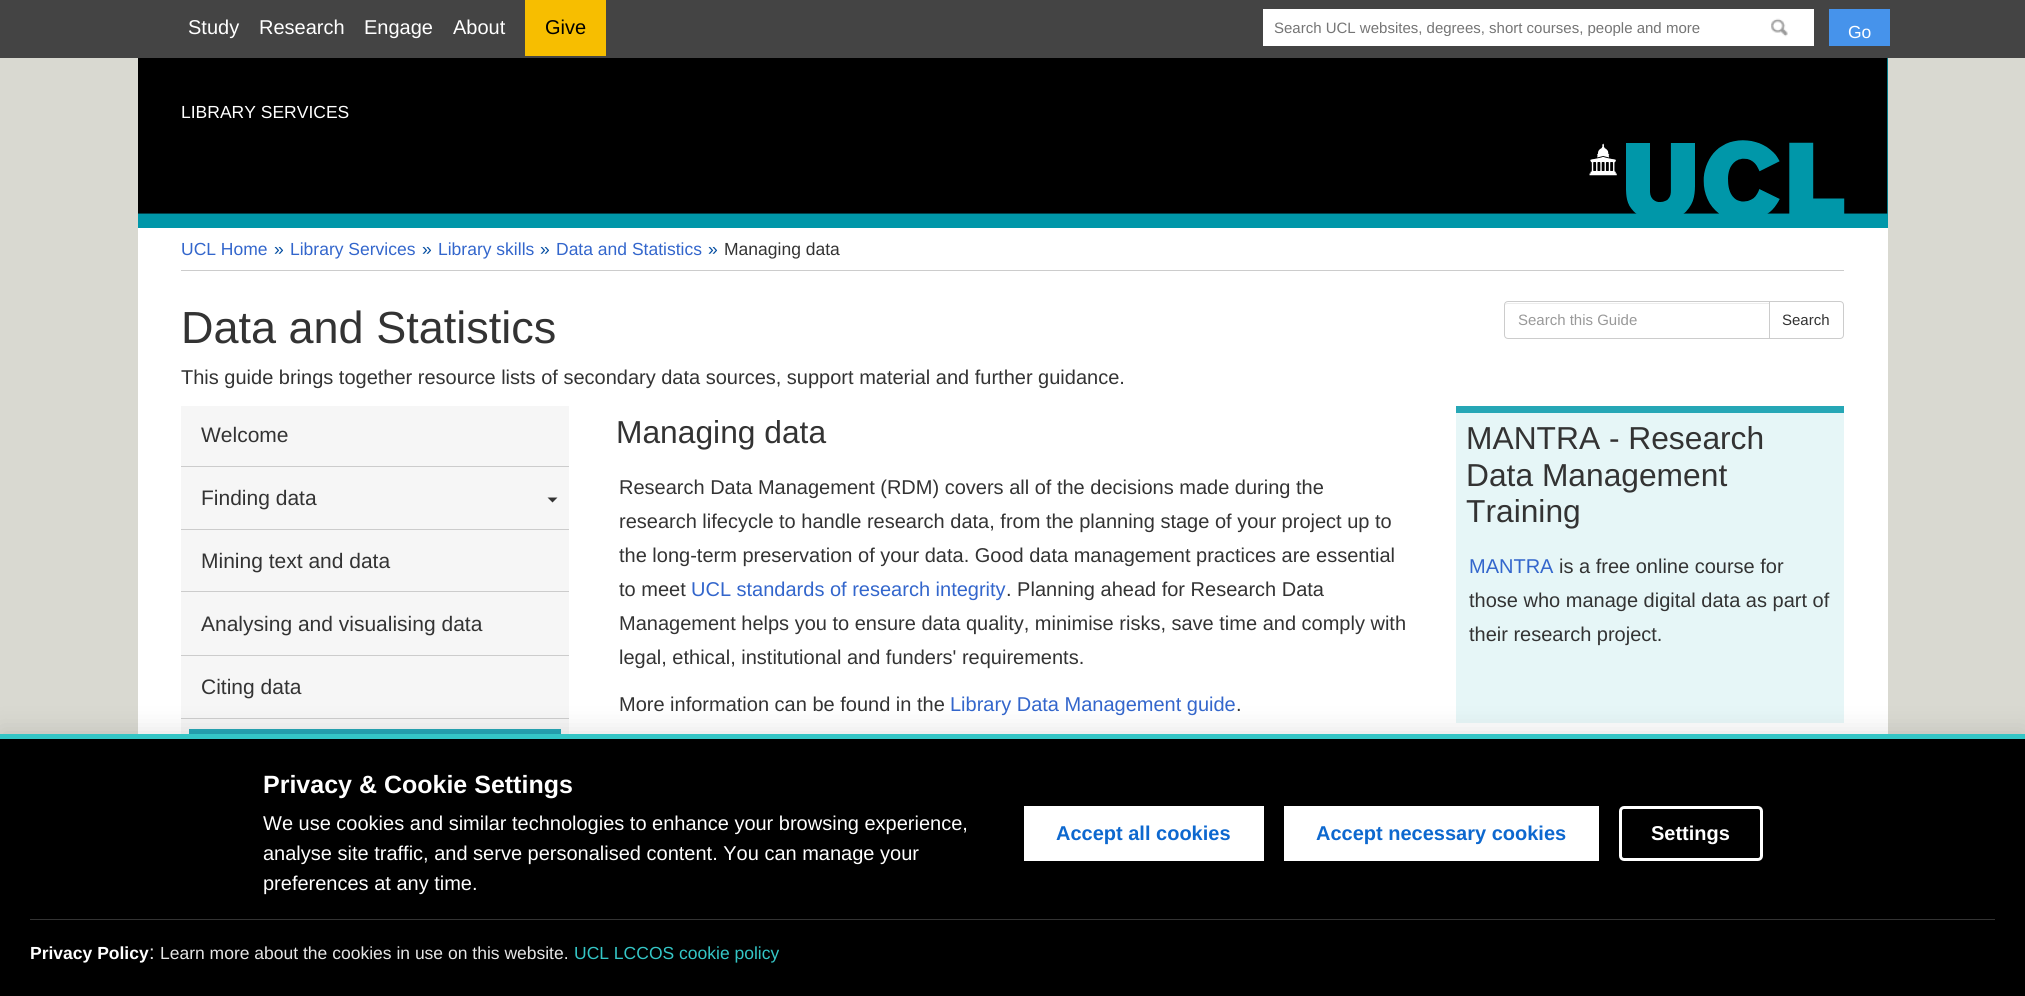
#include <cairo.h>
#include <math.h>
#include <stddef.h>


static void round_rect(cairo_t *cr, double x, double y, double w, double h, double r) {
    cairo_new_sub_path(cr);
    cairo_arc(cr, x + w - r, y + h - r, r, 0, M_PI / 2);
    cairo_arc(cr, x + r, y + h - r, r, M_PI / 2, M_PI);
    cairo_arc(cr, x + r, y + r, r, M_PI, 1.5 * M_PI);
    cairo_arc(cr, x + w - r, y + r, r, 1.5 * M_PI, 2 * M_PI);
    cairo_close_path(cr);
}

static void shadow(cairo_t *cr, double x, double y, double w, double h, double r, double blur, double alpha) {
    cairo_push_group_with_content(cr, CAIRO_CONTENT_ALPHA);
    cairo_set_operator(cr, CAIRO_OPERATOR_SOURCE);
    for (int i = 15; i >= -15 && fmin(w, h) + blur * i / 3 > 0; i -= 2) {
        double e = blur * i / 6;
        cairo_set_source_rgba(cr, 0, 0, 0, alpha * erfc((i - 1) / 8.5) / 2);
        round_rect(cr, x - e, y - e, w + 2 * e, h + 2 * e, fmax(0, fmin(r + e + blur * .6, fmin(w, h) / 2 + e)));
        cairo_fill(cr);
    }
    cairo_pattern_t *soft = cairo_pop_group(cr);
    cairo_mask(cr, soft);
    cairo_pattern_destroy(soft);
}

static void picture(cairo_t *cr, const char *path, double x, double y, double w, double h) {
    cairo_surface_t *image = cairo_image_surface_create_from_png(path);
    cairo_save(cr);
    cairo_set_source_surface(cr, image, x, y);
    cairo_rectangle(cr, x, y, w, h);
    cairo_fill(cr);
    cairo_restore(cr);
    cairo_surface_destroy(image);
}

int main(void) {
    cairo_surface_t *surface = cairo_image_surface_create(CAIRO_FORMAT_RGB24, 2025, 996);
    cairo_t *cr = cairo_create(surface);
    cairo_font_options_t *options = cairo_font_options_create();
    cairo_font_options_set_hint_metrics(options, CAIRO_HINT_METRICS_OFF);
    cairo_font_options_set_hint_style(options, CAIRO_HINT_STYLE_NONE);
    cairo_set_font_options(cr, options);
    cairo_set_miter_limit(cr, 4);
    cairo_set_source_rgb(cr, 0.851, 0.851, 0.82);
    cairo_paint(cr);
    cairo_set_source_rgb(cr, 0.267, 0.267, 0.267);
    cairo_rectangle(cr, 0, 0, 2025, 58);
    cairo_fill(cr);
    cairo_select_font_face(cr, "Liberation Sans", CAIRO_FONT_SLANT_NORMAL, CAIRO_FONT_WEIGHT_NORMAL);
    cairo_set_font_size(cr, 20);
    cairo_set_source_rgb(cr, 1, 1, 1);
    cairo_move_to(cr, 188, 34);
    cairo_show_text(cr, "Study");
    cairo_move_to(cr, 259, 34);
    cairo_show_text(cr, "Research");
    cairo_move_to(cr, 364, 34);
    cairo_show_text(cr, "Engage");
    cairo_move_to(cr, 453, 34);
    cairo_show_text(cr, "About");
    cairo_set_source_rgb(cr, 0.965, 0.745, 0);
    cairo_rectangle(cr, 525, 0, 81, 56);
    cairo_fill(cr);
    cairo_set_source_rgb(cr, 0, 0, 0);
    cairo_move_to(cr, 545, 34);
    cairo_show_text(cr, "Give");
    cairo_set_source_rgb(cr, 1, 1, 1);
    cairo_rectangle(cr, 1263, 9, 551, 37);
    cairo_fill(cr);
    picture(cr, "img1.png", 1771, 18, 17, 19);
    cairo_save(cr);
    cairo_rectangle(cr, 1274, 19, 441, 17);
    cairo_clip(cr);
    cairo_set_font_size(cr, 15);
    cairo_set_source_rgb(cr, 0.459, 0.459, 0.459);
    cairo_move_to(cr, 1274, 33);
    cairo_show_text(cr, "Search UCL websites, degrees, short courses, people and more");
    cairo_restore(cr);
    cairo_set_source_rgb(cr, 0.275, 0.576, 0.918);
    cairo_rectangle(cr, 1829, 9, 61, 37);
    cairo_fill(cr);
    cairo_set_font_size(cr, 17.5);
    cairo_set_source_rgb(cr, 1, 1, 1);
    cairo_move_to(cr, 1848, 38);
    cairo_show_text(cr, "Go");
    cairo_set_source_rgb(cr, 0, 0.592, 0.663);
    cairo_rectangle(cr, 138, 58, 1750, 170);
    cairo_fill(cr);
    picture(cr, "img2.png", 138, 58, 1750, 156);
    cairo_set_source_rgb(cr, 1, 1, 1);
    cairo_move_to(cr, 181, 118);
    cairo_show_text(cr, "LIBRARY SERVICES");
    cairo_rectangle(cr, 138, 228, 1750, 506);
    cairo_fill(cr);
    cairo_set_source_rgb(cr, 0.8, 0.8, 0.8);
    cairo_rectangle(cr, 181, 270, 1663, 1);
    cairo_fill(cr);
    cairo_set_source_rgb(cr, 0.2, 0.4, 0.8);
    cairo_move_to(cr, 181, 255);
    cairo_show_text(cr, "UCL Home");
    cairo_set_source_rgb(cr, 0.012, 0.302, 0.631);
    cairo_move_to(cr, 274, 255);
    cairo_show_text(cr, "»");
    cairo_set_source_rgb(cr, 0.2, 0.4, 0.8);
    cairo_move_to(cr, 290, 255);
    cairo_show_text(cr, "Library Services");
    cairo_set_source_rgb(cr, 0.012, 0.302, 0.631);
    cairo_move_to(cr, 422, 255);
    cairo_show_text(cr, "»");
    cairo_set_source_rgb(cr, 0.2, 0.4, 0.8);
    cairo_move_to(cr, 438, 255);
    cairo_show_text(cr, "Library skills");
    cairo_set_source_rgb(cr, 0.012, 0.302, 0.631);
    cairo_move_to(cr, 540, 255);
    cairo_show_text(cr, "»");
    cairo_set_source_rgb(cr, 0.2, 0.4, 0.8);
    cairo_move_to(cr, 556, 255);
    cairo_show_text(cr, "Data and Statistics");
    cairo_set_source_rgb(cr, 0.012, 0.302, 0.631);
    cairo_move_to(cr, 708, 255);
    cairo_show_text(cr, "»");
    cairo_set_source_rgb(cr, 0.2, 0.2, 0.2);
    cairo_move_to(cr, 724, 255);
    cairo_show_text(cr, "Managing data");
    cairo_set_font_size(cr, 45);
    cairo_move_to(cr, 181, 343);
    cairo_show_text(cr, "Data and Statistics");
    cairo_set_font_size(cr, 20);
    cairo_move_to(cr, 181, 384);
    cairo_show_text(cr, "This guide brings together resource lists of secondary data sources, support material and further guidance.");
    cairo_set_source_rgb(cr, 0.925, 0.925, 0.925);
    cairo_new_path(cr);
    cairo_move_to(cr, 1508, 304);
    cairo_line_to(cr, 1769, 304);
    cairo_line_to(cr, 1769, 303);
    cairo_line_to(cr, 1508, 303);
    cairo_curve_to(cr, 1506, 303, 1505, 304, 1505, 306);
    cairo_curve_to(cr, 1505, 305, 1506, 304, 1508, 304);
    cairo_close_path(cr);
    cairo_fill(cr);
    cairo_new_path(cr);
    cairo_move_to(cr, 1508, 301.5);
    cairo_line_to(cr, 1769.5, 301.5);
    cairo_line_to(cr, 1769.5, 338.5);
    cairo_line_to(cr, 1508, 338.5);
    cairo_curve_to(cr, 1506, 338.5, 1504.5, 337, 1504.5, 335);
    cairo_line_to(cr, 1504.5, 305);
    cairo_curve_to(cr, 1504.5, 303, 1506, 301.5, 1508, 301.5);
    cairo_close_path(cr);
    cairo_set_source_rgb(cr, 0.8, 0.8, 0.8);
    cairo_set_line_width(cr, 1);
    cairo_stroke(cr);
    cairo_set_font_size(cr, 15);
    cairo_set_source_rgb(cr, 0.6, 0.6, 0.6);
    cairo_move_to(cr, 1518, 325);
    cairo_show_text(cr, "Search this Guide");
    cairo_set_source_rgb(cr, 1, 1, 1);
    cairo_new_path(cr);
    cairo_move_to(cr, 1769.5, 301.5);
    cairo_line_to(cr, 1840, 301.5);
    cairo_curve_to(cr, 1842, 301.5, 1843.5, 303, 1843.5, 305);
    cairo_line_to(cr, 1843.5, 335);
    cairo_curve_to(cr, 1843.5, 337, 1842, 338.5, 1840, 338.5);
    cairo_line_to(cr, 1769.5, 338.5);
    cairo_close_path(cr);
    cairo_fill_preserve(cr);
    cairo_set_source_rgb(cr, 0.8, 0.8, 0.8);
    cairo_stroke(cr);
    cairo_set_source_rgb(cr, 0.2, 0.2, 0.2);
    cairo_move_to(cr, 1782, 325);
    cairo_show_text(cr, "Search");
    cairo_set_source_rgb(cr, 0.961, 0.961, 0.961);
    cairo_rectangle(cr, 181, 406, 388, 328);
    cairo_fill(cr);
    cairo_set_source_rgb(cr, 0.8, 0.8, 0.8);
    cairo_rectangle(cr, 181, 466, 388, 1);
    cairo_fill(cr);
    cairo_set_font_size(cr, 21);
    cairo_set_source_rgb(cr, 0.2, 0.2, 0.2);
    cairo_move_to(cr, 201, 442);
    cairo_show_text(cr, "Welcome");
    cairo_set_source_rgb(cr, 0.8, 0.8, 0.8);
    cairo_rectangle(cr, 181, 529, 388, 1);
    cairo_fill(cr);
    cairo_set_source_rgb(cr, 0.2, 0.2, 0.2);
    cairo_move_to(cr, 201, 505);
    cairo_show_text(cr, "Finding data");
    cairo_new_path(cr);
    cairo_move_to(cr, 547.5, 497.5);
    cairo_line_to(cr, 557.5, 497.5);
    cairo_line_to(cr, 552.5, 502.5);
    cairo_close_path(cr);
    cairo_fill(cr);
    cairo_set_source_rgb(cr, 0.8, 0.8, 0.8);
    cairo_rectangle(cr, 181, 591, 388, 1);
    cairo_fill(cr);
    cairo_set_source_rgb(cr, 0.2, 0.2, 0.2);
    cairo_move_to(cr, 201, 568);
    cairo_show_text(cr, "Mining text and data");
    cairo_set_source_rgb(cr, 0.8, 0.8, 0.8);
    cairo_rectangle(cr, 181, 655, 388, 1);
    cairo_fill(cr);
    cairo_set_source_rgb(cr, 0.2, 0.2, 0.2);
    cairo_move_to(cr, 201, 631);
    cairo_show_text(cr, "Analysing and visualising data");
    cairo_set_source_rgb(cr, 0.8, 0.8, 0.8);
    cairo_rectangle(cr, 181, 718, 388, 1);
    cairo_fill(cr);
    cairo_set_source_rgb(cr, 0.2, 0.2, 0.2);
    cairo_move_to(cr, 201, 694);
    cairo_show_text(cr, "Citing data");
    cairo_set_source_rgb(cr, 0.149, 0.655, 0.714);
    cairo_rectangle(cr, 189, 729, 372, 5);
    cairo_fill(cr);
    cairo_set_font_size(cr, 31.75);
    cairo_set_source_rgb(cr, 0.2, 0.2, 0.2);
    cairo_move_to(cr, 616, 443);
    cairo_show_text(cr, "Managing data");
    cairo_set_font_size(cr, 20);
    cairo_move_to(cr, 619, 494);
    cairo_show_text(cr, "Research Data Management (RDM) covers all of the decisions made during the");
    cairo_move_to(cr, 619, 528);
    cairo_show_text(cr, "research lifecycle to handle research data, from the planning stage of your project up to");
    cairo_move_to(cr, 619, 562);
    cairo_show_text(cr, "the long-term preservation of your data. Good data management practices are essential");
    cairo_move_to(cr, 619, 596);
    cairo_show_text(cr, "to meet");
    cairo_set_source_rgb(cr, 0.2, 0.4, 0.8);
    cairo_move_to(cr, 691, 596);
    cairo_show_text(cr, "UCL standards of research integrity");
    cairo_set_source_rgb(cr, 0.2, 0.2, 0.2);
    cairo_move_to(cr, 1006, 596);
    cairo_show_text(cr, ". Planning ahead for Research Data");
    cairo_move_to(cr, 619, 630);
    cairo_show_text(cr, "Management helps you to ensure data quality, minimise risks, save time and comply with");
    cairo_move_to(cr, 619, 664);
    cairo_show_text(cr, "legal, ethical, institutional and funders' requirements.");
    cairo_move_to(cr, 619, 711);
    cairo_show_text(cr, "More information can be found in the");
    cairo_set_source_rgb(cr, 0.2, 0.4, 0.8);
    cairo_move_to(cr, 950, 711);
    cairo_show_text(cr, "Library Data Management guide");
    cairo_set_source_rgb(cr, 0.2, 0.2, 0.2);
    cairo_move_to(cr, 1236, 711);
    cairo_show_text(cr, ".");
    cairo_set_source_rgb(cr, 0.902, 0.961, 0.965);
    cairo_rectangle(cr, 1456, 413, 388, 310);
    cairo_fill(cr);
    cairo_set_source_rgb(cr, 0.149, 0.655, 0.714);
    cairo_rectangle(cr, 1456, 406, 388, 7);
    cairo_fill(cr);
    cairo_set_font_size(cr, 31.75);
    cairo_set_source_rgb(cr, 0.2, 0.2, 0.2);
    cairo_move_to(cr, 1466, 449);
    cairo_show_text(cr, "MANTRA - Research");
    cairo_move_to(cr, 1466, 486);
    cairo_show_text(cr, "Data Management");
    cairo_move_to(cr, 1466, 522);
    cairo_show_text(cr, "Training");
    cairo_set_font_size(cr, 20);
    cairo_set_source_rgb(cr, 0.2, 0.4, 0.8);
    cairo_move_to(cr, 1469, 573);
    cairo_show_text(cr, "MANTRA");
    cairo_set_source_rgb(cr, 0.2, 0.2, 0.2);
    cairo_move_to(cr, 1559, 573);
    cairo_show_text(cr, "is a free online course for");
    cairo_move_to(cr, 1469, 607);
    cairo_show_text(cr, "those who manage digital data as part of");
    cairo_move_to(cr, 1469, 641);
    cairo_show_text(cr, "their research project.");
    cairo_set_source_rgb(cr, 0, 0, 0);
    shadow(cr, 0, 729, 2025, 262, 0, 12.5, 0.1);
    cairo_set_source_rgb(cr, 0, 0, 0);
    cairo_rectangle(cr, 0, 739, 2025, 257);
    cairo_fill(cr);
    cairo_set_source_rgb(cr, 0.204, 0.776, 0.776);
    cairo_rectangle(cr, 0, 734, 2025, 5);
    cairo_fill(cr);
    cairo_select_font_face(cr, "Liberation Sans", CAIRO_FONT_SLANT_NORMAL, CAIRO_FONT_WEIGHT_BOLD);
    cairo_set_font_size(cr, 25);
    cairo_set_source_rgb(cr, 1, 1, 1);
    cairo_move_to(cr, 263, 793);
    cairo_show_text(cr, "Privacy & Cookie Settings");
    cairo_select_font_face(cr, "Liberation Sans", CAIRO_FONT_SLANT_NORMAL, CAIRO_FONT_WEIGHT_NORMAL);
    cairo_set_font_size(cr, 20);
    cairo_move_to(cr, 263, 830);
    cairo_show_text(cr, "We use cookies and similar technologies to enhance your browsing experience,");
    cairo_move_to(cr, 263, 860);
    cairo_show_text(cr, "analyse site traffic, and serve personalised content. You can manage your");
    cairo_move_to(cr, 263, 890);
    cairo_show_text(cr, "preferences at any time.");
    cairo_rectangle(cr, 1024, 806, 240, 55);
    cairo_fill(cr);
    cairo_select_font_face(cr, "Liberation Sans", CAIRO_FONT_SLANT_NORMAL, CAIRO_FONT_WEIGHT_BOLD);
    cairo_set_source_rgb(cr, 0.051, 0.408, 0.812);
    cairo_move_to(cr, 1056, 840);
    cairo_show_text(cr, "Accept all cookies");
    cairo_set_source_rgb(cr, 1, 1, 1);
    cairo_rectangle(cr, 1284, 806, 315, 55);
    cairo_fill(cr);
    cairo_set_source_rgb(cr, 0.051, 0.408, 0.812);
    cairo_move_to(cr, 1316, 840);
    cairo_show_text(cr, "Accept necessary cookies");
    round_rect(cr, 1620.5, 807.5, 141, 52, 3.5);
    cairo_set_source_rgb(cr, 1, 1, 1);
    cairo_set_line_width(cr, 3);
    cairo_stroke(cr);
    cairo_move_to(cr, 1651, 840);
    cairo_show_text(cr, "Settings");
    cairo_set_source_rgb(cr, 0.2, 0.2, 0.2);
    cairo_rectangle(cr, 30, 919, 1965, 1);
    cairo_fill(cr);
    cairo_set_font_size(cr, 17.5);
    cairo_set_source_rgb(cr, 1, 1, 1);
    cairo_move_to(cr, 30, 959);
    cairo_show_text(cr, "Privacy Policy");
    cairo_select_font_face(cr, "Liberation Sans", CAIRO_FONT_SLANT_NORMAL, CAIRO_FONT_WEIGHT_NORMAL);
    cairo_set_font_size(cr, 20);
    cairo_set_source_rgb(cr, 0.902, 0.902, 0.902);
    cairo_move_to(cr, 149, 959);
    cairo_show_text(cr, ":");
    cairo_set_font_size(cr, 17.5);
    cairo_move_to(cr, 160, 959);
    cairo_show_text(cr, "Learn more about the cookies in use on this website.");
    cairo_set_source_rgb(cr, 0.204, 0.776, 0.776);
    cairo_move_to(cr, 574, 959);
    cairo_show_text(cr, "UCL LCCOS cookie policy");
    cairo_surface_write_to_png(surface, "page.png");
    cairo_font_options_destroy(options);
    cairo_destroy(cr);
    cairo_surface_destroy(surface);
    return 0;
}
